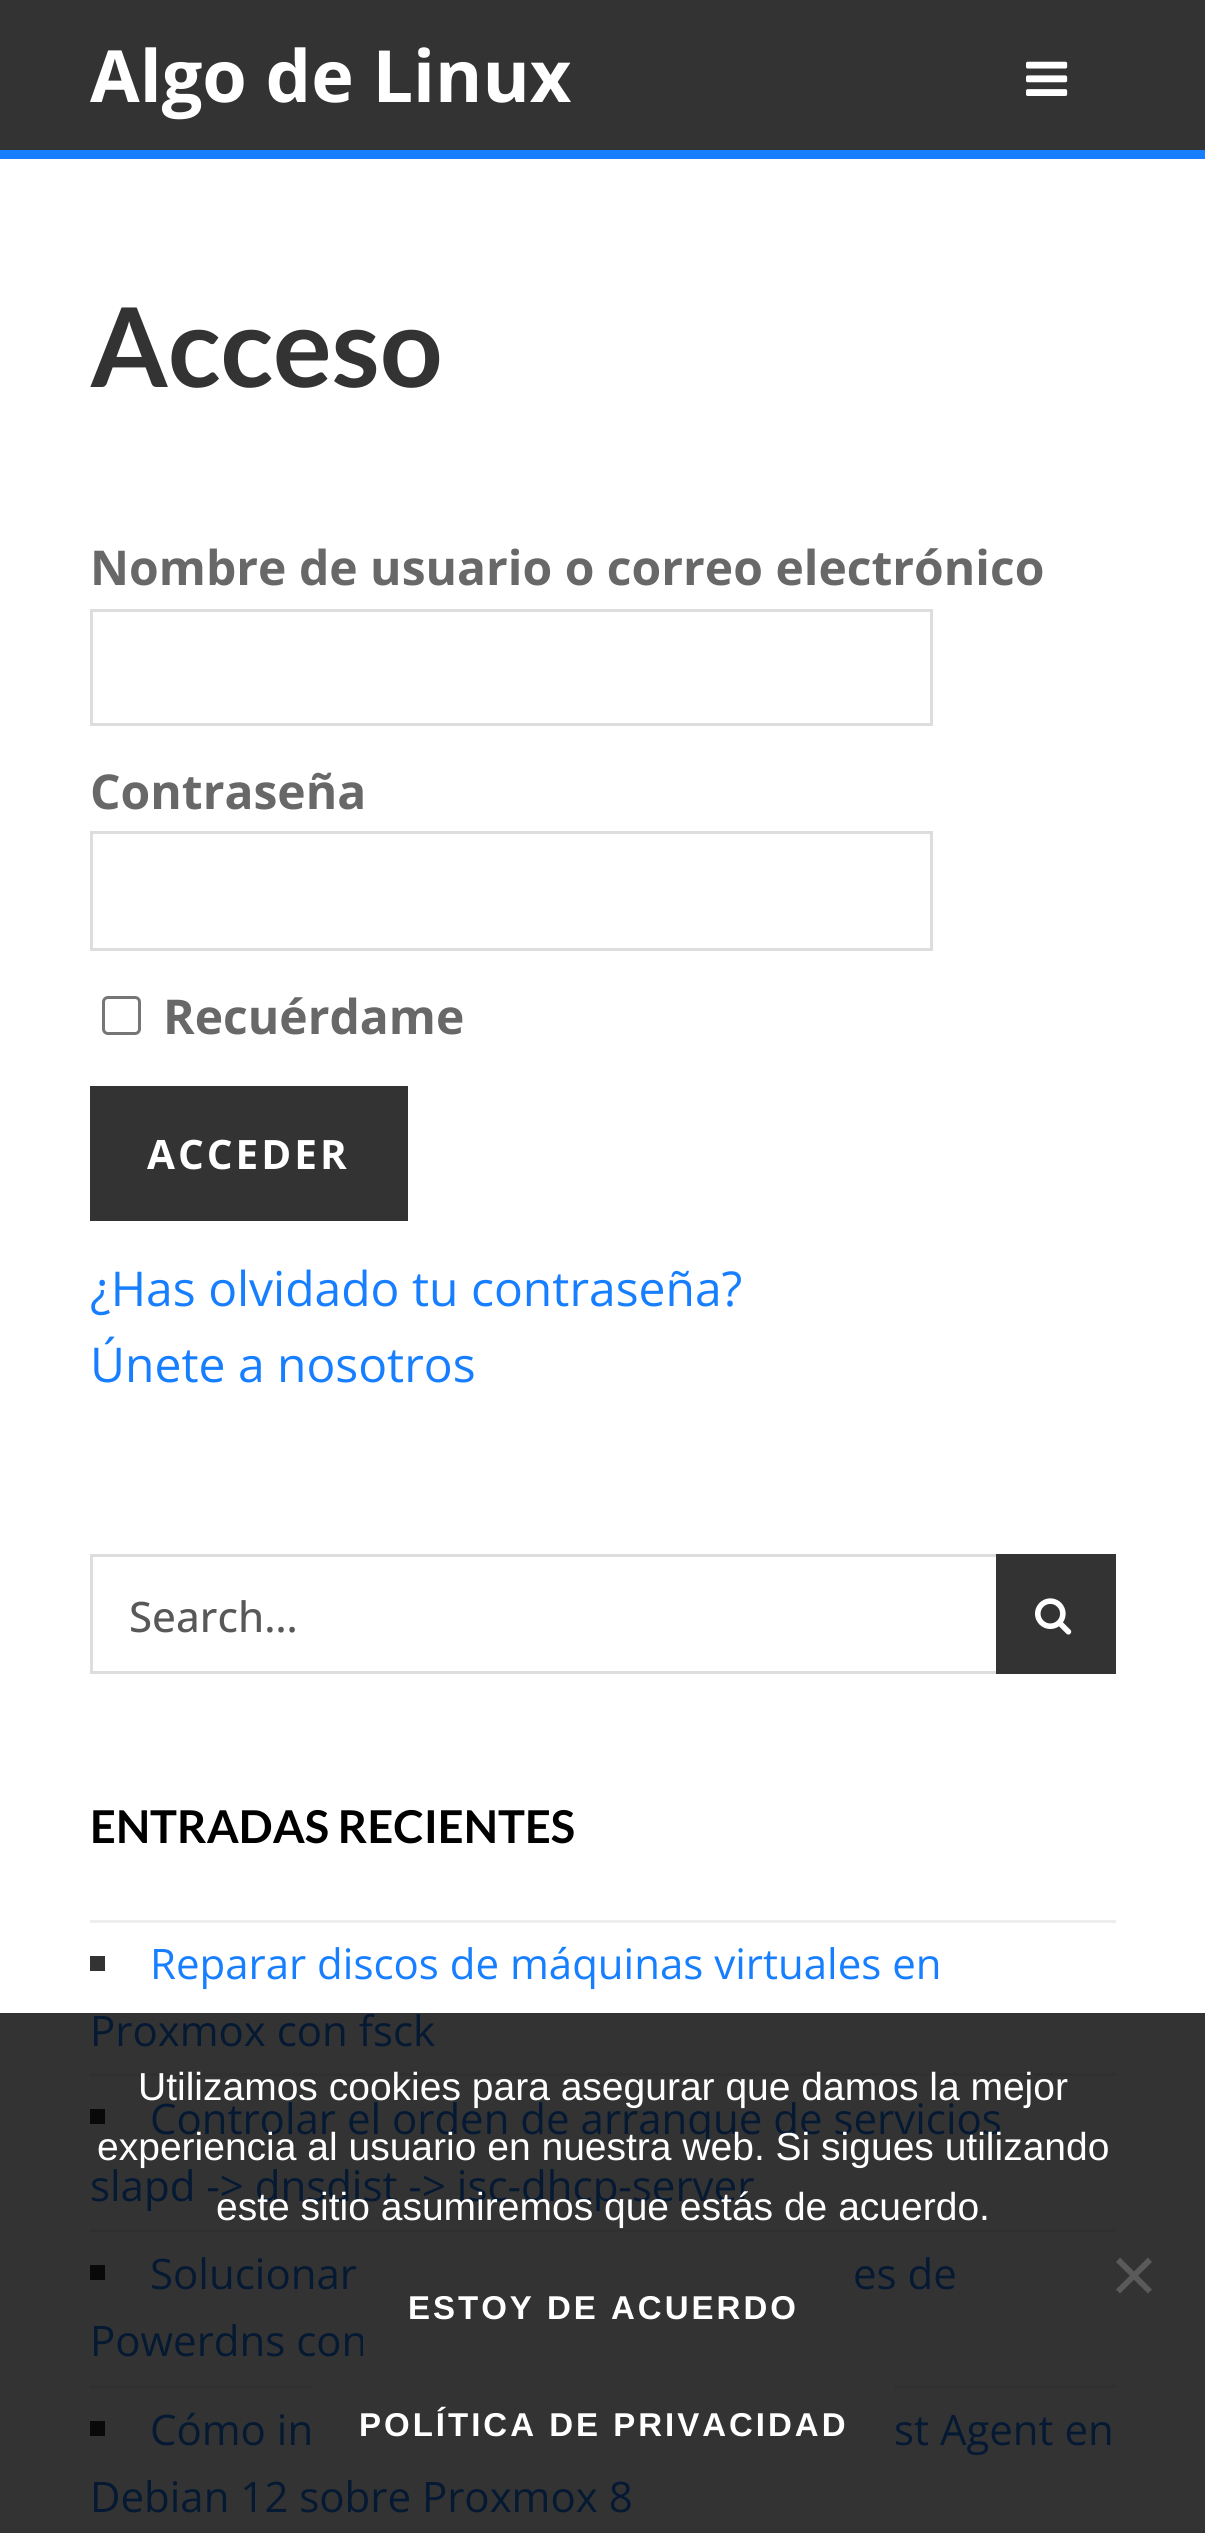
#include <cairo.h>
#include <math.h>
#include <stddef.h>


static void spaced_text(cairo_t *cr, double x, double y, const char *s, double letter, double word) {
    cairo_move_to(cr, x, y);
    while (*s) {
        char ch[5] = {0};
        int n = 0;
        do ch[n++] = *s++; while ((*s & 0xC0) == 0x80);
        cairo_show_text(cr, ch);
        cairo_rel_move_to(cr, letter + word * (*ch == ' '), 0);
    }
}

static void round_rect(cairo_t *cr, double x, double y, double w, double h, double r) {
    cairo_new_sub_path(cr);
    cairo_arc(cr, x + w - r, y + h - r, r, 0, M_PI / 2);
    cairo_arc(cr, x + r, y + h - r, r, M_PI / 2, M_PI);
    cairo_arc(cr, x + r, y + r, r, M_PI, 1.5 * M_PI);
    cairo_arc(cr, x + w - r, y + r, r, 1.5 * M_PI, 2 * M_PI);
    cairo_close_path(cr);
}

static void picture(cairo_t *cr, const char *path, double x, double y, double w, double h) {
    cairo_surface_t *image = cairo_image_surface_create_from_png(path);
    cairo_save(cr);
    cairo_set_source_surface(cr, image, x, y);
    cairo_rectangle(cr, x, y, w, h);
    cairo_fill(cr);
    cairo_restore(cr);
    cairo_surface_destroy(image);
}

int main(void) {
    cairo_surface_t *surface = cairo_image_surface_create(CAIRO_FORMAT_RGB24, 1205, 2533);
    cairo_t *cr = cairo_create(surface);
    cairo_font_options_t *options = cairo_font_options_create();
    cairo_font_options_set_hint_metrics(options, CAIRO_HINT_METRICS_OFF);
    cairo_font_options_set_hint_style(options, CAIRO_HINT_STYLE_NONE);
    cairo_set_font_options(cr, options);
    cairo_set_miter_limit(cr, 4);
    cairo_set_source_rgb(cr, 1, 1, 1);
    cairo_paint(cr);
    cairo_set_source_rgb(cr, 0.2, 0.2, 0.2);
    cairo_rectangle(cr, 0, 2013, 1205, 520);
    cairo_fill(cr);
    cairo_rectangle(cr, 0, 0, 1205, 150);
    cairo_fill(cr);
    cairo_set_source_rgb(cr, 0.09, 0.498, 1);
    cairo_rectangle(cr, 0, 150, 1205, 9);
    cairo_fill(cr);
    cairo_select_font_face(cr, "Open Sans", CAIRO_FONT_SLANT_NORMAL, CAIRO_FONT_WEIGHT_BOLD);
    cairo_set_font_size(cr, 72);
    cairo_set_source_rgb(cr, 1, 1, 1);
    cairo_move_to(cr, 90, 102);
    cairo_show_text(cr, "Algo de Linux");
    picture(cr, "img1.png", 1026, 61, 42, 35);
    cairo_select_font_face(cr, "Lato", CAIRO_FONT_SLANT_NORMAL, CAIRO_FONT_WEIGHT_BOLD);
    cairo_set_font_size(cr, 110);
    cairo_set_source_rgb(cr, 0.2, 0.2, 0.2);
    cairo_move_to(cr, 90, 387);
    cairo_show_text(cr, "Acceso");
    cairo_select_font_face(cr, "Open Sans", CAIRO_FONT_SLANT_NORMAL, CAIRO_FONT_WEIGHT_BOLD);
    cairo_set_font_size(cr, 48);
    cairo_set_source_rgb(cr, 0.408, 0.408, 0.408);
    cairo_move_to(cr, 90, 585);
    cairo_show_text(cr, "Nombre de usuario o correo electrónico");
    cairo_rectangle(cr, 91.5, 610.5, 840, 114);
    cairo_set_source_rgb(cr, 0.867, 0.867, 0.867);
    cairo_set_line_width(cr, 3);
    cairo_stroke(cr);
    cairo_set_source_rgb(cr, 0.408, 0.408, 0.408);
    cairo_move_to(cr, 90, 809);
    cairo_show_text(cr, "Contraseña");
    cairo_rectangle(cr, 91.5, 832.5, 840, 117);
    cairo_set_source_rgb(cr, 0.867, 0.867, 0.867);
    cairo_stroke(cr);
    round_rect(cr, 103.5, 997.5, 36, 36, 4.5);
    cairo_set_source_rgb(cr, 0.463, 0.463, 0.463);
    cairo_stroke(cr);
    cairo_set_source_rgb(cr, 0.408, 0.408, 0.408);
    cairo_move_to(cr, 163, 1034);
    cairo_show_text(cr, "Recuérdame");
    cairo_set_source_rgb(cr, 0.2, 0.2, 0.2);
    cairo_rectangle(cr, 90, 1086, 318, 135);
    cairo_fill(cr);
    cairo_set_font_size(cr, 40.5);
    cairo_set_source_rgb(cr, 1, 1, 1);
    spaced_text(cr, 147, 1169, "ACCEDER", 3, 0);
    cairo_select_font_face(cr, "Open Sans", CAIRO_FONT_SLANT_NORMAL, CAIRO_FONT_WEIGHT_NORMAL);
    cairo_set_font_size(cr, 48);
    cairo_set_source_rgb(cr, 0.09, 0.498, 1);
    cairo_move_to(cr, 90, 1306);
    cairo_show_text(cr, "¿Has olvidado tu contraseña?");
    cairo_move_to(cr, 90, 1382);
    cairo_show_text(cr, "Únete a nosotros");
    cairo_rectangle(cr, 91.5, 1555.5, 1023, 117);
    cairo_set_source_rgb(cr, 0.867, 0.867, 0.867);
    cairo_stroke(cr);
    cairo_select_font_face(cr, "Open Sans Medium", CAIRO_FONT_SLANT_NORMAL, CAIRO_FONT_WEIGHT_NORMAL);
    cairo_set_font_size(cr, 42);
    cairo_set_source_rgb(cr, 0.345, 0.345, 0.345);
    cairo_move_to(cr, 129, 1632);
    cairo_show_text(cr, "Search…");
    cairo_set_source_rgb(cr, 0.2, 0.2, 0.2);
    cairo_rectangle(cr, 996, 1554, 120, 120);
    cairo_fill(cr);
    picture(cr, "img2.png", 1035, 1598, 37, 37);
    cairo_select_font_face(cr, "Lato", CAIRO_FONT_SLANT_NORMAL, CAIRO_FONT_WEIGHT_BOLD);
    cairo_set_font_size(cr, 45.25);
    cairo_set_source_rgb(cr, 0, 0, 0);
    cairo_move_to(cr, 90, 1843);
    cairo_show_text(cr, "ENTRADAS RECIENTES");
    cairo_set_source_rgb(cr, 0.933, 0.933, 0.933);
    cairo_rectangle(cr, 90, 1920, 1026, 3);
    cairo_fill(cr);
    cairo_set_source_rgb(cr, 0.188, 0.188, 0.188);
    cairo_rectangle(cr, 90, 2073, 1026, 3);
    cairo_fill(cr);
    cairo_set_source_rgb(cr, 0.2, 0.2, 0.2);
    cairo_rectangle(cr, 90, 1956, 15, 15);
    cairo_fill(cr);
    cairo_select_font_face(cr, "Open Sans", CAIRO_FONT_SLANT_NORMAL, CAIRO_FONT_WEIGHT_NORMAL);
    cairo_set_font_size(cr, 42);
    cairo_set_source_rgb(cr, 0.09, 0.498, 1);
    cairo_move_to(cr, 150, 1979);
    cairo_show_text(cr, "Reparar discos de máquinas virtuales en");
    cairo_set_source_rgb(cr, 0.02, 0.098, 0.2);
    cairo_move_to(cr, 90, 2046);
    cairo_show_text(cr, "Proxmox con fsck");
    cairo_set_source_rgb(cr, 0.188, 0.188, 0.188);
    cairo_rectangle(cr, 90, 2229, 1026, 3);
    cairo_fill(cr);
    cairo_set_source_rgb(cr, 0.039, 0.039, 0.039);
    cairo_rectangle(cr, 90, 2109, 15, 15);
    cairo_fill(cr);
    cairo_set_source_rgb(cr, 0.02, 0.098, 0.2);
    cairo_move_to(cr, 150, 2134);
    cairo_show_text(cr, "Controlar el orden de arranque de servicios");
    cairo_move_to(cr, 90, 2201);
    cairo_show_text(cr, "slapd -> dnsdist -> isc-dhcp-server");
    cairo_set_source_rgb(cr, 0.188, 0.188, 0.188);
    cairo_rectangle(cr, 90, 2385, 1026, 3);
    cairo_fill(cr);
    cairo_set_source_rgb(cr, 0.039, 0.039, 0.039);
    cairo_rectangle(cr, 90, 2265, 15, 15);
    cairo_fill(cr);
    cairo_set_source_rgb(cr, 0.02, 0.098, 0.2);
    cairo_move_to(cr, 150, 2289);
    cairo_show_text(cr, "Solucionar");
    cairo_move_to(cr, 853, 2289);
    cairo_show_text(cr, "es de");
    cairo_move_to(cr, 90, 2356);
    cairo_show_text(cr, "Powerdns con");
    cairo_set_source_rgb(cr, 0.039, 0.039, 0.039);
    cairo_rectangle(cr, 90, 2421, 15, 15);
    cairo_fill(cr);
    cairo_set_source_rgb(cr, 0.02, 0.098, 0.2);
    cairo_move_to(cr, 150, 2445);
    cairo_show_text(cr, "Cómo in");
    cairo_move_to(cr, 894, 2445);
    cairo_show_text(cr, "st Agent en");
    cairo_move_to(cr, 90, 2512);
    cairo_show_text(cr, "Debian 12 sobre Proxmox 8");
    cairo_select_font_face(cr, "Liberation Sans", CAIRO_FONT_SLANT_NORMAL, CAIRO_FONT_WEIGHT_NORMAL);
    cairo_set_font_size(cr, 39);
    cairo_set_source_rgb(cr, 1, 1, 1);
    cairo_move_to(cr, 138, 2100);
    cairo_show_text(cr, "Utilizamos cookies para asegurar que damos la mejor");
    cairo_move_to(cr, 97, 2160);
    cairo_show_text(cr, "experiencia al usuario en nuestra web. Si sigues utilizando");
    cairo_move_to(cr, 216, 2220);
    cairo_show_text(cr, "este sitio asumiremos que estás de acuerdo.");
    cairo_set_source_rgb(cr, 0.353, 0.353, 0.353);
    cairo_new_path(cr);
    cairo_move_to(cr, 1148, 2257.5);
    cairo_line_to(cr, 1152, 2262);
    cairo_line_to(cr, 1120, 2293.5);
    cairo_line_to(cr, 1116, 2289.5);
    cairo_close_path(cr);
    cairo_fill(cr);
    cairo_new_path(cr);
    cairo_move_to(cr, 1116, 2262);
    cairo_line_to(cr, 1120, 2257.5);
    cairo_line_to(cr, 1152, 2289.5);
    cairo_line_to(cr, 1148, 2293.5);
    cairo_close_path(cr);
    cairo_fill(cr);
    cairo_set_source_rgb(cr, 0.2, 0.2, 0.2);
    cairo_rectangle(cr, 363, 2336, 2, 20);
    cairo_fill(cr);
    cairo_select_font_face(cr, "Liberation Sans", CAIRO_FONT_SLANT_NORMAL, CAIRO_FONT_WEIGHT_BOLD);
    cairo_set_font_size(cr, 33);
    cairo_set_source_rgb(cr, 1, 1, 1);
    spaced_text(cr, 408, 2319, "ESTOY DE ACUERDO", 3, 0);
    cairo_set_source_rgb(cr, 0.2, 0.2, 0.2);
    cairo_rectangle(cr, 312, 2385, 582, 3);
    cairo_fill(cr);
    cairo_set_source_rgb(cr, 1, 1, 1);
    spaced_text(cr, 359, 2436, "POLÍTICA DE PRIVACIDAD", 3, 0);
    cairo_surface_write_to_png(surface, "page.png");
    cairo_font_options_destroy(options);
    cairo_destroy(cr);
    cairo_surface_destroy(surface);
    return 0;
}
